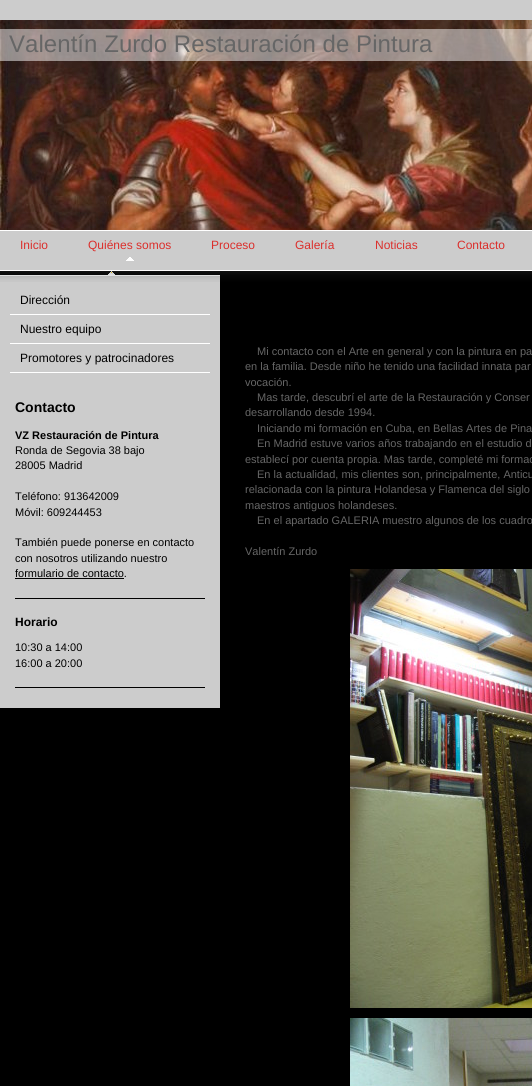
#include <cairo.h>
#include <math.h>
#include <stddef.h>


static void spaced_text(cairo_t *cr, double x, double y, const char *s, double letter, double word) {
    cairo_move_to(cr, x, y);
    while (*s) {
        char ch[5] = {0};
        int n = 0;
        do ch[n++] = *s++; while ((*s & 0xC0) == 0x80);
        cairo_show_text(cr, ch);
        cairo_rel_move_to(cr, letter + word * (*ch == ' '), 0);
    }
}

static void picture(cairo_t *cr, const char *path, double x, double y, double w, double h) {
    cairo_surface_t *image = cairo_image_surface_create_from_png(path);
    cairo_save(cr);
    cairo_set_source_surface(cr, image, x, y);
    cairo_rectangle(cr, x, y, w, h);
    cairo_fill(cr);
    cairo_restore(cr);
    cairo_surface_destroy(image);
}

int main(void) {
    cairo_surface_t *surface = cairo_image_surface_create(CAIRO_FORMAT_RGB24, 532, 1086);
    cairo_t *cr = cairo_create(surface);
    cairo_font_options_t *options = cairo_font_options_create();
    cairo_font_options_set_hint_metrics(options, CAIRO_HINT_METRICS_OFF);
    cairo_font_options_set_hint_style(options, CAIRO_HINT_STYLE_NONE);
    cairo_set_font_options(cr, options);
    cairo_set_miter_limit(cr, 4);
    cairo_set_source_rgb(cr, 0, 0, 0);
    cairo_paint(cr);
    cairo_set_source_rgb(cr, 0.8, 0.8, 0.8);
    cairo_rectangle(cr, 0, 0, 532, 270);
    cairo_fill(cr);
    cairo_set_source_rgb(cr, 1, 1, 1);
    cairo_rectangle(cr, 0, 230, 532, 1);
    cairo_fill(cr);
    picture(cr, "img1.png", 0, 20, 532, 210);
    cairo_set_source_rgba(cr, 1, 1, 1, 0.5);
    cairo_rectangle(cr, 0, 29, 532, 32);
    cairo_fill(cr);
    cairo_select_font_face(cr, "Liberation Sans", CAIRO_FONT_SLANT_NORMAL, CAIRO_FONT_WEIGHT_NORMAL);
    cairo_set_font_size(cr, 24);
    cairo_set_source_rgb(cr, 0.4, 0.4, 0.4);
    spaced_text(cr, 9, 52, "Valentín Zurdo Restauración de Pintura", 0.05, 0);
    cairo_set_font_size(cr, 12);
    cairo_set_source_rgb(cr, 0.859, 0.184, 0.173);
    cairo_move_to(cr, 20, 249);
    cairo_show_text(cr, "Inicio");
    picture(cr, "img2.png", 126, 257, 8, 4);
    cairo_move_to(cr, 88, 249);
    cairo_show_text(cr, "Quiénes somos");
    cairo_move_to(cr, 211, 249);
    cairo_show_text(cr, "Proceso");
    cairo_move_to(cr, 295, 249);
    cairo_show_text(cr, "Galería");
    cairo_move_to(cr, 375, 249);
    cairo_show_text(cr, "Noticias");
    cairo_move_to(cr, 457, 249);
    cairo_show_text(cr, "Contacto");
    picture(cr, "img4.png", 0, 271, 220, 5);
    cairo_set_source_rgb(cr, 0.8, 0.8, 0.8);
    cairo_rectangle(cr, 0, 276, 220, 432);
    cairo_fill(cr);
    picture(cr, "img3.png", 0, 270, 532, 12);
    cairo_set_source_rgb(cr, 1, 1, 1);
    cairo_rectangle(cr, 10, 314, 200, 1);
    cairo_fill(cr);
    cairo_set_source_rgb(cr, 0, 0, 0);
    cairo_move_to(cr, 20, 304);
    cairo_show_text(cr, "Dirección");
    cairo_set_source_rgb(cr, 1, 1, 1);
    cairo_rectangle(cr, 10, 343, 200, 1);
    cairo_fill(cr);
    cairo_set_source_rgb(cr, 0, 0, 0);
    cairo_move_to(cr, 20, 333);
    cairo_show_text(cr, "Nuestro equipo");
    cairo_set_source_rgb(cr, 1, 1, 1);
    cairo_rectangle(cr, 10, 372, 200, 1);
    cairo_fill(cr);
    cairo_set_source_rgb(cr, 0, 0, 0);
    cairo_move_to(cr, 20, 362);
    cairo_show_text(cr, "Promotores y patrocinadores");
    cairo_select_font_face(cr, "Liberation Sans", CAIRO_FONT_SLANT_NORMAL, CAIRO_FONT_WEIGHT_BOLD);
    cairo_set_font_size(cr, 14);
    cairo_move_to(cr, 15, 412);
    cairo_show_text(cr, "Contacto");
    cairo_set_font_size(cr, 11);
    cairo_move_to(cr, 15, 439);
    cairo_show_text(cr, "VZ Restauración de Pintura");
    cairo_select_font_face(cr, "Liberation Sans", CAIRO_FONT_SLANT_NORMAL, CAIRO_FONT_WEIGHT_NORMAL);
    cairo_move_to(cr, 15, 454);
    cairo_show_text(cr, "Ronda de Segovia 38 bajo");
    cairo_move_to(cr, 15, 469);
    cairo_show_text(cr, "28005 Madrid");
    cairo_move_to(cr, 15, 500);
    cairo_show_text(cr, "Teléfono: 913642009");
    cairo_move_to(cr, 15, 516);
    cairo_show_text(cr, "Móvil: 609244453");
    cairo_move_to(cr, 15, 546);
    cairo_show_text(cr, "También puede ponerse en contacto");
    cairo_move_to(cr, 15, 562);
    cairo_show_text(cr, "con nosotros utilizando nuestro");
    cairo_move_to(cr, 15, 577);
    cairo_show_text(cr, "formulario de contacto.");
    cairo_rectangle(cr, 15, 578, 109, 1);
    cairo_fill(cr);
    cairo_rectangle(cr, 15, 598, 190, 1);
    cairo_fill(cr);
    cairo_select_font_face(cr, "Liberation Sans", CAIRO_FONT_SLANT_NORMAL, CAIRO_FONT_WEIGHT_BOLD);
    cairo_set_font_size(cr, 12);
    cairo_move_to(cr, 15, 626);
    cairo_show_text(cr, "Horario");
    cairo_select_font_face(cr, "Liberation Sans", CAIRO_FONT_SLANT_NORMAL, CAIRO_FONT_WEIGHT_NORMAL);
    cairo_set_font_size(cr, 11);
    cairo_move_to(cr, 15, 651);
    cairo_show_text(cr, "10:30 a 14:00");
    cairo_move_to(cr, 15, 667);
    cairo_show_text(cr, "16:00 a 20:00");
    cairo_rectangle(cr, 15, 687, 190, 1);
    cairo_fill(cr);
    cairo_set_source_rgb(cr, 0.4, 0.4, 0.4);
    cairo_move_to(cr, 257, 355);
    cairo_show_text(cr, "Mi contacto con el Arte en general y con la pintura en pa");
    cairo_move_to(cr, 245, 370);
    cairo_show_text(cr, "en la familia. Desde niño he tenido una facilidad innata par");
    cairo_move_to(cr, 245, 386);
    cairo_show_text(cr, "vocación.");
    cairo_move_to(cr, 257, 401);
    cairo_show_text(cr, "Mas tarde, descubrí el arte de la Restauración y Conser");
    cairo_move_to(cr, 245, 416);
    cairo_show_text(cr, "desarrollando desde 1994.");
    cairo_move_to(cr, 257, 432);
    cairo_show_text(cr, "Iniciando mi formación en Cuba, en Bellas Artes de Pina");
    cairo_move_to(cr, 257, 447);
    cairo_show_text(cr, "En Madrid estuve varios años trabajando en el estudio d");
    cairo_move_to(cr, 245, 463);
    cairo_show_text(cr, "establecí por cuenta propia. Mas tarde, completé mi formac");
    cairo_move_to(cr, 257, 478);
    cairo_show_text(cr, "En la actualidad, mis clientes son, principalmente, Anticu");
    cairo_move_to(cr, 245, 493);
    cairo_show_text(cr, "relacionada con la pintura Holandesa y Flamenca del siglo");
    cairo_move_to(cr, 245, 509);
    cairo_show_text(cr, "maestros antiguos holandeses.");
    cairo_move_to(cr, 257, 524);
    cairo_show_text(cr, "En el apartado GALERIA muestro algunos de los cuadro");
    cairo_move_to(cr, 245, 555);
    cairo_show_text(cr, "Valentín Zurdo");
    picture(cr, "img5.png", 350, 569, 182, 439);
    picture(cr, "img6.png", 350, 1018, 182, 68);
    cairo_surface_write_to_png(surface, "page.png");
    cairo_font_options_destroy(options);
    cairo_destroy(cr);
    cairo_surface_destroy(surface);
    return 0;
}
